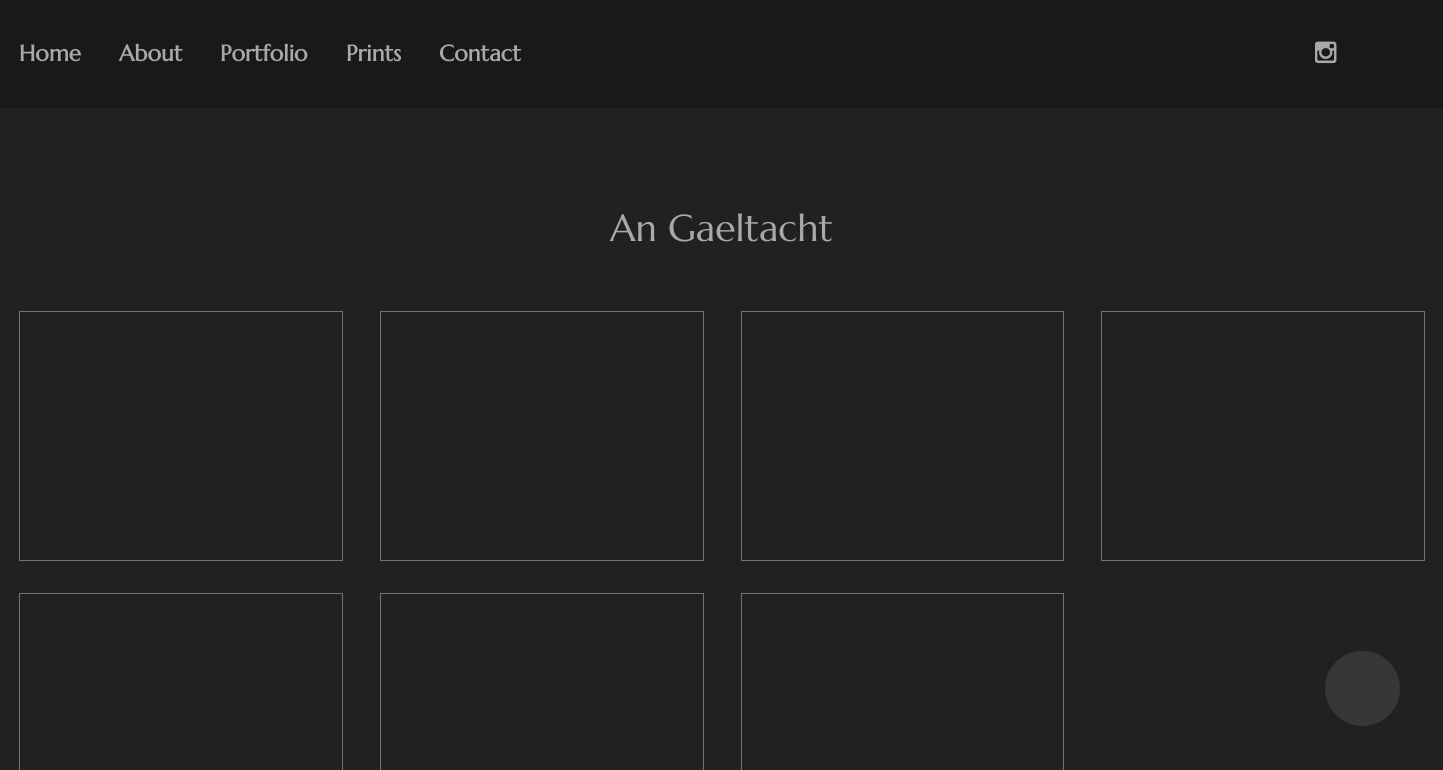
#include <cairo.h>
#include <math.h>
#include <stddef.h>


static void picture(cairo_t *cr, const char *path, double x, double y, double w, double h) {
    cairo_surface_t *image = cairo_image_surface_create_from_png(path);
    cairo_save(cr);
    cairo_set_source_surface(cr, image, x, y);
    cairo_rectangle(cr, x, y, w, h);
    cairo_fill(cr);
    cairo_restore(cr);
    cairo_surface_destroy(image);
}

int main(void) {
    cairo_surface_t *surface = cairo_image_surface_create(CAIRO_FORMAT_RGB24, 1443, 770);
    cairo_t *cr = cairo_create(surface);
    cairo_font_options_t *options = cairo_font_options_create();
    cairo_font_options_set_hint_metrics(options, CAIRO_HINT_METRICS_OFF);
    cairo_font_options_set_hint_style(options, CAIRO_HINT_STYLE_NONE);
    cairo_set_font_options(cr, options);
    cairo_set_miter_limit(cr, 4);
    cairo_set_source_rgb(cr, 0.129, 0.129, 0.129);
    cairo_paint(cr);
    cairo_set_source_rgb(cr, 0.098, 0.098, 0.098);
    cairo_rectangle(cr, 0, 0, 1443, 108);
    cairo_fill(cr);
    cairo_select_font_face(cr, "Marcellus", CAIRO_FONT_SLANT_NORMAL, CAIRO_FONT_WEIGHT_BOLD);
    cairo_set_font_size(cr, 22.5);
    cairo_set_source_rgb(cr, 0.663, 0.663, 0.663);
    cairo_move_to(cr, 19, 61);
    cairo_show_text(cr, "Home");
    cairo_move_to(cr, 119, 61);
    cairo_show_text(cr, "About");
    cairo_move_to(cr, 220, 61);
    cairo_show_text(cr, "Portfolio");
    cairo_move_to(cr, 346, 61);
    cairo_show_text(cr, "Prints");
    cairo_move_to(cr, 439, 61);
    cairo_show_text(cr, "Contact");
    picture(cr, "img1.png", 1315, 41, 22, 23);
    cairo_select_font_face(cr, "Marcellus", CAIRO_FONT_SLANT_NORMAL, CAIRO_FONT_WEIGHT_NORMAL);
    cairo_set_font_size(cr, 37.5);
    cairo_move_to(cr, 610, 241);
    cairo_show_text(cr, "An Gaeltacht");
    cairo_rectangle(cr, 19.5, 311.5, 323, 249);
    cairo_set_source_rgb(cr, 0.455, 0.455, 0.455);
    cairo_set_line_width(cr, 1);
    cairo_stroke(cr);
    cairo_rectangle(cr, 380.5, 311.5, 323, 249);
    cairo_stroke(cr);
    cairo_rectangle(cr, 741.5, 311.5, 322, 249);
    cairo_stroke(cr);
    cairo_rectangle(cr, 1101.5, 311.5, 323, 249);
    cairo_stroke(cr);
    cairo_rectangle(cr, 19.5, 593.5, 323, 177);
    cairo_stroke(cr);
    cairo_rectangle(cr, 380.5, 593.5, 323, 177);
    cairo_stroke(cr);
    cairo_rectangle(cr, 741.5, 593.5, 322, 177);
    cairo_stroke(cr);
    cairo_set_source_rgb(cr, 0.216, 0.216, 0.216);
    cairo_arc(cr, 1362.5, 688.5, 37.5, 0, 2 * M_PI);
    cairo_fill(cr);
    cairo_surface_write_to_png(surface, "page.png");
    cairo_font_options_destroy(options);
    cairo_destroy(cr);
    cairo_surface_destroy(surface);
    return 0;
}
